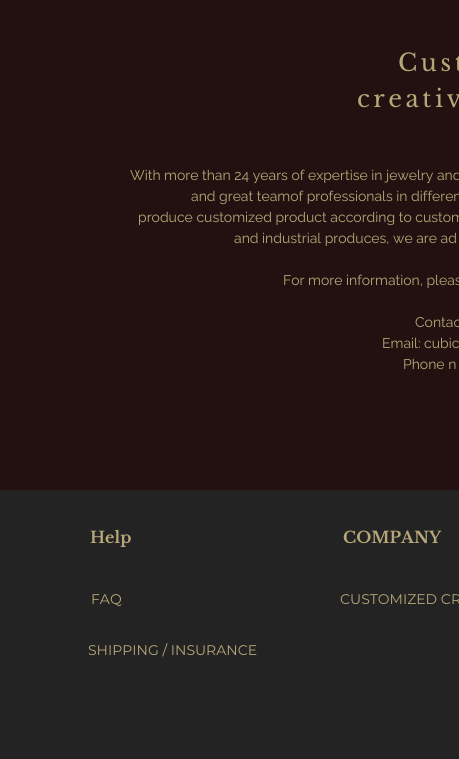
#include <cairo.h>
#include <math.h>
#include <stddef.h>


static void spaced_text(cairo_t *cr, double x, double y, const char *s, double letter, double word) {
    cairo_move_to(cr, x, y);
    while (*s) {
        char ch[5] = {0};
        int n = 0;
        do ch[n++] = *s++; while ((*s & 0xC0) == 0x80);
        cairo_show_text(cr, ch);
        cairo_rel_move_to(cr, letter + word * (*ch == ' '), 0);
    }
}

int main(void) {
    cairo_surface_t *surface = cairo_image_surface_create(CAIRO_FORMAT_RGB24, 459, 759);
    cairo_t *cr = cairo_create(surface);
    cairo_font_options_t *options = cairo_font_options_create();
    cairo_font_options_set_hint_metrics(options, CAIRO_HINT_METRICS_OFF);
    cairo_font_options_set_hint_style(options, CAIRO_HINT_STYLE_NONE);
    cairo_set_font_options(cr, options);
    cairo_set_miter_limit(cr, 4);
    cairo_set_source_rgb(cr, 0.137, 0.067, 0.067);
    cairo_paint(cr);
    cairo_select_font_face(cr, "Libre Baskerville", CAIRO_FONT_SLANT_NORMAL, CAIRO_FONT_WEIGHT_NORMAL);
    cairo_set_font_size(cr, 24);
    cairo_set_source_rgb(cr, 0.71, 0.655, 0.467);
    spaced_text(cr, 398, 71, "Cust", 3.5, 0);
    spaced_text(cr, 357, 107, "creativ", 3.5, 0);
    cairo_select_font_face(cr, "Raleway", CAIRO_FONT_SLANT_NORMAL, CAIRO_FONT_WEIGHT_NORMAL);
    cairo_set_font_size(cr, 14);
    cairo_move_to(cr, 130, 180);
    cairo_show_text(cr, "With more than 24 years of expertise in jewelry and");
    cairo_move_to(cr, 191, 201);
    cairo_show_text(cr, "and great teamof professionals in differen");
    cairo_move_to(cr, 138, 222);
    cairo_show_text(cr, "produce customized product according to custom");
    cairo_move_to(cr, 234, 243);
    cairo_show_text(cr, "and industrial produces, we are ad");
    cairo_move_to(cr, 283, 285);
    cairo_show_text(cr, "For more information, pleas");
    cairo_move_to(cr, 415, 327);
    cairo_show_text(cr, "Contac");
    cairo_move_to(cr, 382, 348);
    cairo_show_text(cr, "Email: cubic");
    cairo_move_to(cr, 403, 369);
    cairo_show_text(cr, "Phone n");
    cairo_set_source_rgb(cr, 0.141, 0.137, 0.137);
    cairo_rectangle(cr, 0, 490, 459, 269);
    cairo_fill(cr);
    cairo_select_font_face(cr, "Libre Baskerville", CAIRO_FONT_SLANT_NORMAL, CAIRO_FONT_WEIGHT_BOLD);
    cairo_set_font_size(cr, 16);
    cairo_set_source_rgb(cr, 0.71, 0.655, 0.467);
    cairo_move_to(cr, 90, 543);
    cairo_show_text(cr, "Help");
    cairo_move_to(cr, 343, 543);
    cairo_show_text(cr, "COMPANY");
    cairo_select_font_face(cr, "Montserrat", CAIRO_FONT_SLANT_NORMAL, CAIRO_FONT_WEIGHT_NORMAL);
    cairo_set_font_size(cr, 14);
    cairo_move_to(cr, 91, 604);
    cairo_show_text(cr, "FAQ");
    cairo_move_to(cr, 340, 604);
    cairo_show_text(cr, "CUSTOMIZED CR");
    cairo_move_to(cr, 88, 655);
    cairo_show_text(cr, "SHIPPING / INSURANCE");
    cairo_surface_write_to_png(surface, "page.png");
    cairo_font_options_destroy(options);
    cairo_destroy(cr);
    cairo_surface_destroy(surface);
    return 0;
}
